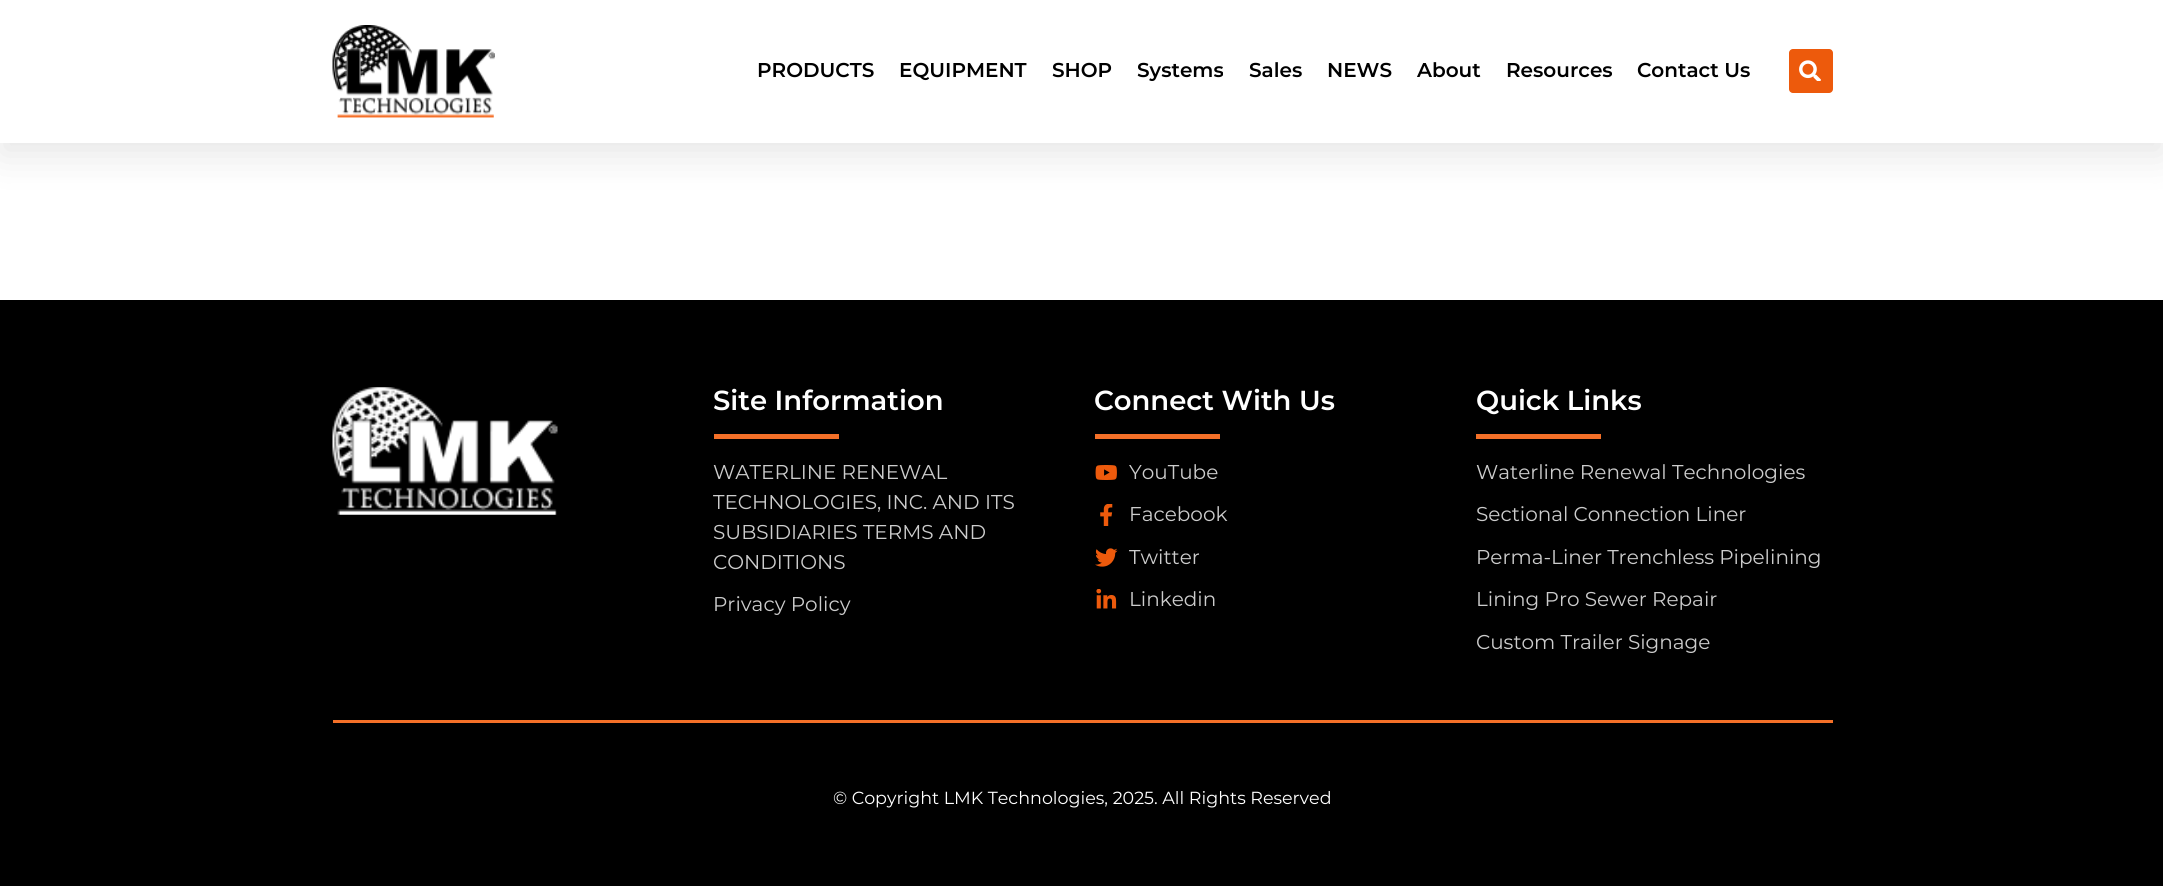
#include <cairo.h>
#include <math.h>
#include <stddef.h>


static void round_rect(cairo_t *cr, double x, double y, double w, double h, double r) {
    cairo_new_sub_path(cr);
    cairo_arc(cr, x + w - r, y + h - r, r, 0, M_PI / 2);
    cairo_arc(cr, x + r, y + h - r, r, M_PI / 2, M_PI);
    cairo_arc(cr, x + r, y + r, r, M_PI, 1.5 * M_PI);
    cairo_arc(cr, x + w - r, y + r, r, 1.5 * M_PI, 2 * M_PI);
    cairo_close_path(cr);
}

static void shadow(cairo_t *cr, double x, double y, double w, double h, double r, double blur, double alpha) {
    cairo_push_group_with_content(cr, CAIRO_CONTENT_ALPHA);
    cairo_set_operator(cr, CAIRO_OPERATOR_SOURCE);
    for (int i = 15; i >= -15 && fmin(w, h) + blur * i / 3 > 0; i -= 2) {
        double e = blur * i / 6;
        cairo_set_source_rgba(cr, 0, 0, 0, alpha * erfc((i - 1) / 8.5) / 2);
        round_rect(cr, x - e, y - e, w + 2 * e, h + 2 * e, fmax(0, fmin(r + e + blur * .6, fmin(w, h) / 2 + e)));
        cairo_fill(cr);
    }
    cairo_pattern_t *soft = cairo_pop_group(cr);
    cairo_mask(cr, soft);
    cairo_pattern_destroy(soft);
}

static void picture(cairo_t *cr, const char *path, double x, double y, double w, double h) {
    cairo_surface_t *image = cairo_image_surface_create_from_png(path);
    cairo_save(cr);
    cairo_set_source_surface(cr, image, x, y);
    cairo_rectangle(cr, x, y, w, h);
    cairo_fill(cr);
    cairo_restore(cr);
    cairo_surface_destroy(image);
}

int main(void) {
    cairo_surface_t *surface = cairo_image_surface_create(CAIRO_FORMAT_RGB24, 2163, 886);
    cairo_t *cr = cairo_create(surface);
    cairo_font_options_t *options = cairo_font_options_create();
    cairo_font_options_set_hint_metrics(options, CAIRO_HINT_METRICS_OFF);
    cairo_font_options_set_hint_style(options, CAIRO_HINT_STYLE_NONE);
    cairo_set_font_options(cr, options);
    cairo_set_miter_limit(cr, 4);
    cairo_set_source_rgb(cr, 1, 1, 1);
    cairo_paint(cr);
    cairo_set_source_rgb(cr, 0, 0, 0);
    shadow(cr, 0, 13, 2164, 142, 0, 19, 0.1);
    cairo_set_source_rgb(cr, 1, 1, 1);
    cairo_rectangle(cr, 0, 0, 2163, 143);
    cairo_fill(cr);
    picture(cr, "img1.png", 332, 25, 163, 93);
    cairo_select_font_face(cr, "Montserrat SemiBold", CAIRO_FONT_SLANT_NORMAL, CAIRO_FONT_WEIGHT_NORMAL);
    cairo_set_font_size(cr, 20);
    cairo_set_source_rgb(cr, 0, 0, 0);
    cairo_move_to(cr, 757, 77);
    cairo_show_text(cr, "PRODUCTS");
    cairo_move_to(cr, 899, 77);
    cairo_show_text(cr, "EQUIPMENT");
    cairo_move_to(cr, 1052, 77);
    cairo_show_text(cr, "SHOP");
    cairo_move_to(cr, 1137, 77);
    cairo_show_text(cr, "Systems");
    cairo_move_to(cr, 1249, 77);
    cairo_show_text(cr, "Sales");
    cairo_move_to(cr, 1327, 77);
    cairo_show_text(cr, "NEWS");
    cairo_move_to(cr, 1417, 77);
    cairo_show_text(cr, "About");
    cairo_move_to(cr, 1506, 77);
    cairo_show_text(cr, "Resources");
    cairo_move_to(cr, 1637, 77);
    cairo_show_text(cr, "Contact Us");
    cairo_set_source_rgb(cr, 0.929, 0.353, 0.047);
    round_rect(cr, 1789, 49, 44, 44, 4);
    cairo_fill(cr);
    picture(cr, "img2.png", 1799, 60, 22, 21);
    cairo_set_source_rgb(cr, 0, 0, 0);
    cairo_rectangle(cr, 0, 300, 2163, 586);
    cairo_fill(cr);
    picture(cr, "img3.png", 332, 387, 226, 128);
    cairo_set_font_size(cr, 27.5);
    cairo_set_source_rgb(cr, 1, 1, 1);
    cairo_move_to(cr, 713, 410);
    cairo_show_text(cr, "Site Information");
    cairo_set_source_rgb(cr, 0.957, 0.439, 0.157);
    cairo_rectangle(cr, 714, 434, 125, 5);
    cairo_fill(cr);
    cairo_select_font_face(cr, "Montserrat", CAIRO_FONT_SLANT_NORMAL, CAIRO_FONT_WEIGHT_NORMAL);
    cairo_set_font_size(cr, 20);
    cairo_set_source_rgb(cr, 0.8, 0.8, 0.8);
    cairo_move_to(cr, 713, 479);
    cairo_show_text(cr, "WATERLINE RENEWAL");
    cairo_move_to(cr, 713, 509);
    cairo_show_text(cr, "TECHNOLOGIES, INC. AND ITS");
    cairo_move_to(cr, 713, 539);
    cairo_show_text(cr, "SUBSIDIARIES TERMS AND");
    cairo_move_to(cr, 713, 569);
    cairo_show_text(cr, "CONDITIONS");
    cairo_move_to(cr, 713, 611);
    cairo_show_text(cr, "Privacy Policy");
    cairo_select_font_face(cr, "Montserrat SemiBold", CAIRO_FONT_SLANT_NORMAL, CAIRO_FONT_WEIGHT_NORMAL);
    cairo_set_font_size(cr, 27.5);
    cairo_set_source_rgb(cr, 1, 1, 1);
    cairo_move_to(cr, 1094, 410);
    cairo_show_text(cr, "Connect With Us");
    cairo_set_source_rgb(cr, 0.957, 0.439, 0.157);
    cairo_rectangle(cr, 1095, 434, 125, 5);
    cairo_fill(cr);
    picture(cr, "img4.png", 1095, 465, 22, 15);
    cairo_select_font_face(cr, "Montserrat", CAIRO_FONT_SLANT_NORMAL, CAIRO_FONT_WEIGHT_NORMAL);
    cairo_set_font_size(cr, 20);
    cairo_set_source_rgb(cr, 0.8, 0.8, 0.8);
    cairo_move_to(cr, 1129, 479);
    cairo_show_text(cr, "YouTube");
    picture(cr, "img5.png", 1100, 504, 13, 22);
    cairo_move_to(cr, 1129, 521);
    cairo_show_text(cr, "Facebook");
    picture(cr, "img6.png", 1095, 548, 23, 19);
    cairo_move_to(cr, 1129, 564);
    cairo_show_text(cr, "Twitter");
    picture(cr, "img7.png", 1096, 589, 21, 20);
    cairo_move_to(cr, 1129, 606);
    cairo_show_text(cr, "Linkedin");
    cairo_select_font_face(cr, "Montserrat SemiBold", CAIRO_FONT_SLANT_NORMAL, CAIRO_FONT_WEIGHT_NORMAL);
    cairo_set_font_size(cr, 27.5);
    cairo_set_source_rgb(cr, 1, 1, 1);
    cairo_move_to(cr, 1476, 410);
    cairo_show_text(cr, "Quick Links");
    cairo_set_source_rgb(cr, 0.957, 0.439, 0.157);
    cairo_rectangle(cr, 1476, 434, 125, 5);
    cairo_fill(cr);
    cairo_select_font_face(cr, "Montserrat", CAIRO_FONT_SLANT_NORMAL, CAIRO_FONT_WEIGHT_NORMAL);
    cairo_set_font_size(cr, 20);
    cairo_set_source_rgb(cr, 0.8, 0.8, 0.8);
    cairo_move_to(cr, 1476, 479);
    cairo_show_text(cr, "Waterline Renewal Technologies");
    cairo_move_to(cr, 1476, 521);
    cairo_show_text(cr, "Sectional Connection Liner");
    cairo_move_to(cr, 1476, 564);
    cairo_show_text(cr, "Perma-Liner Trenchless Pipelining");
    cairo_move_to(cr, 1476, 606);
    cairo_show_text(cr, "Lining Pro Sewer Repair");
    cairo_move_to(cr, 1476, 649);
    cairo_show_text(cr, "Custom Trailer Signage");
    cairo_set_source_rgb(cr, 0.957, 0.439, 0.157);
    cairo_rectangle(cr, 333, 720, 1500, 3);
    cairo_fill(cr);
    cairo_set_font_size(cr, 17.5);
    cairo_set_source_rgb(cr, 1, 1, 1);
    cairo_move_to(cr, 833, 804);
    cairo_show_text(cr, "© Copyright LMK Technologies, 2025. All Rights Reserved");
    cairo_surface_write_to_png(surface, "page.png");
    cairo_font_options_destroy(options);
    cairo_destroy(cr);
    cairo_surface_destroy(surface);
    return 0;
}
